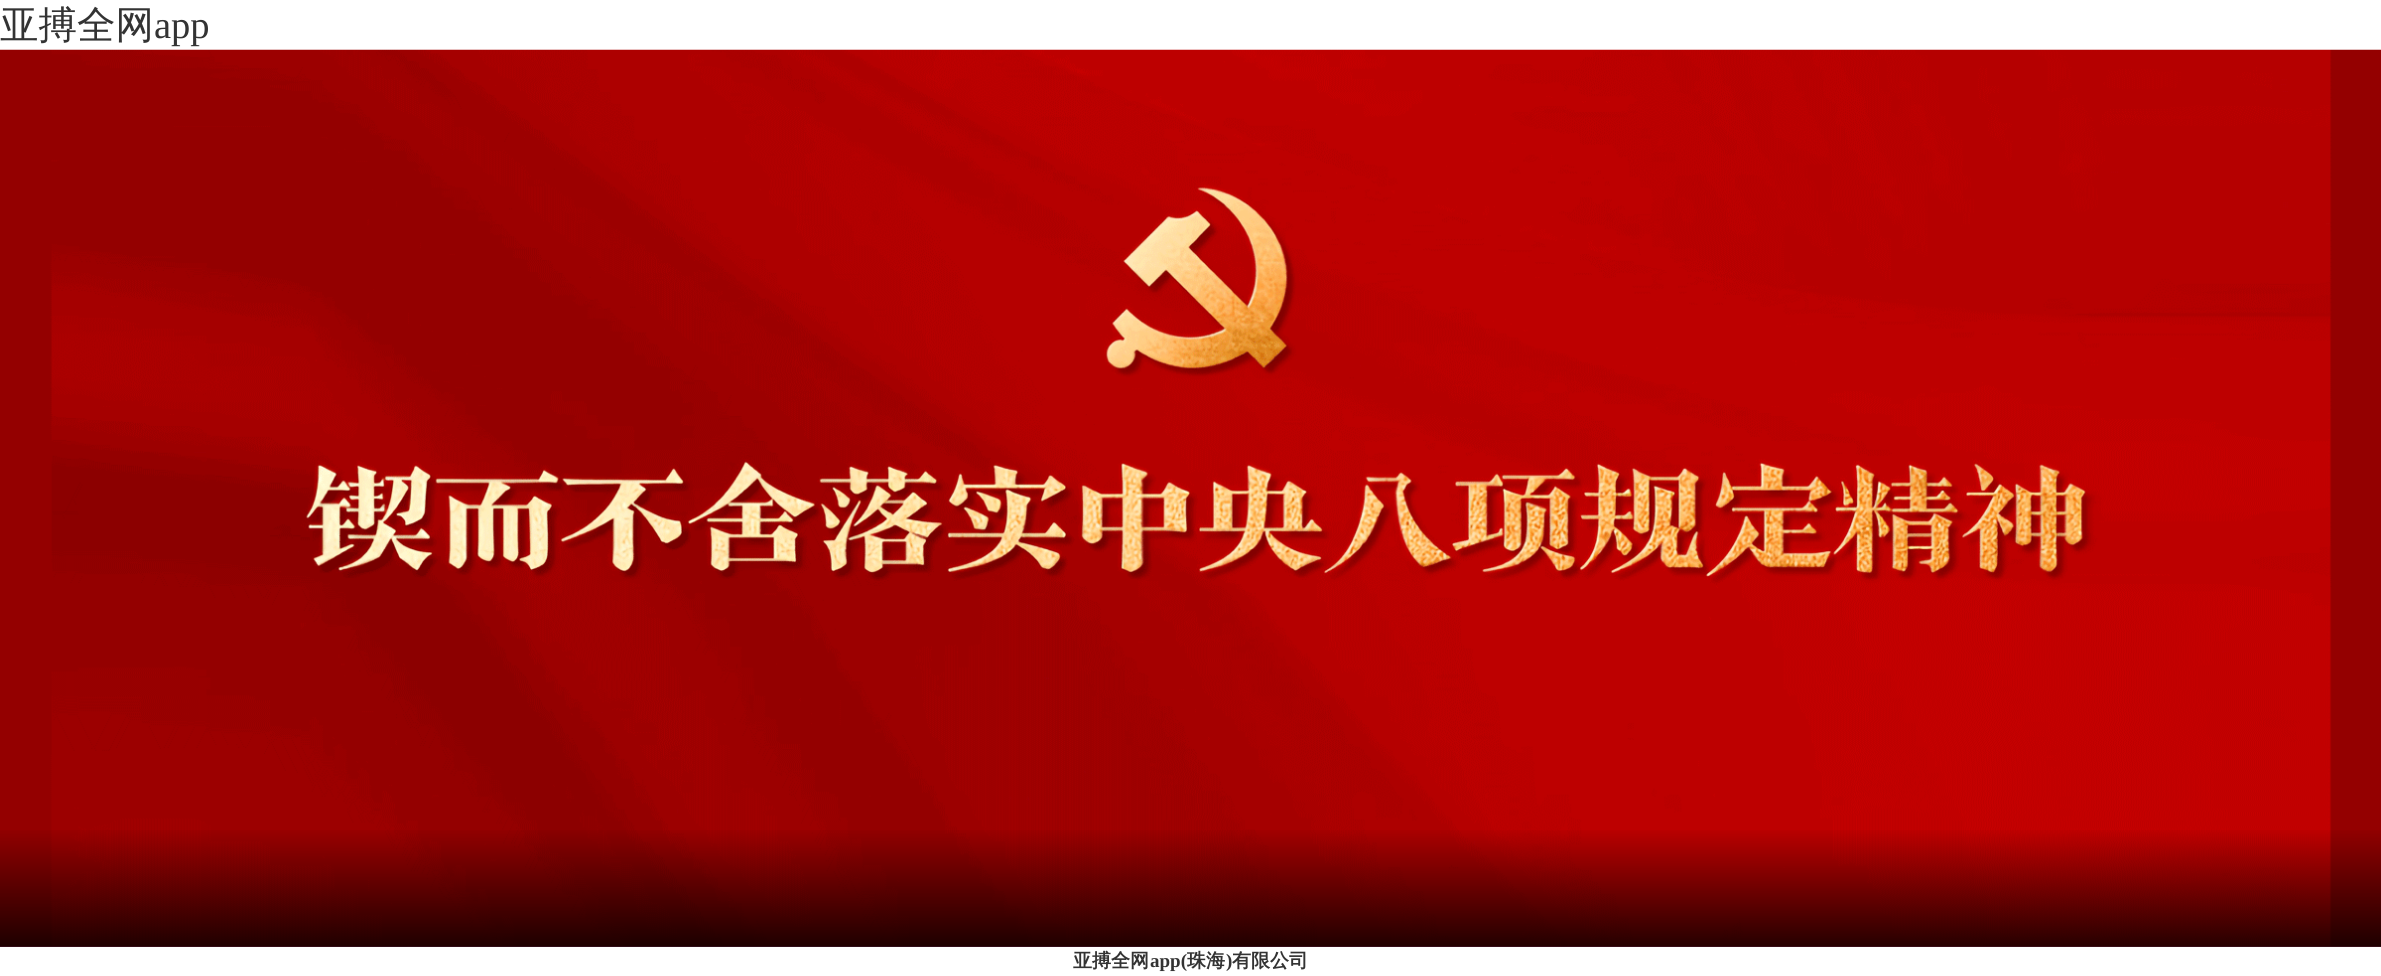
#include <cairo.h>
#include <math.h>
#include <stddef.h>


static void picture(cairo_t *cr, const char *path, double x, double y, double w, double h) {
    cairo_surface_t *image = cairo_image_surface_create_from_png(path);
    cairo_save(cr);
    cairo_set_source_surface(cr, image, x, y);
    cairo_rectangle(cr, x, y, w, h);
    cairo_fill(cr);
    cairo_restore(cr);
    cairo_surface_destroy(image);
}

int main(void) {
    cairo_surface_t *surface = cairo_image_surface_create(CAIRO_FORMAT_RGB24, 2381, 976);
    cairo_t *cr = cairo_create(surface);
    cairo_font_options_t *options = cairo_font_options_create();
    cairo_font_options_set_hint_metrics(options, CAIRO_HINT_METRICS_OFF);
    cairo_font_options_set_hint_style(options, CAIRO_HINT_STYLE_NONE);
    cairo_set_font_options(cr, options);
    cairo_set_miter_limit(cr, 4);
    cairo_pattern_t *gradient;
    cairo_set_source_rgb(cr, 1, 1, 1);
    cairo_paint(cr);
    cairo_select_font_face(cr, "WenQuanYi Zen Hei Medium", CAIRO_FONT_SLANT_NORMAL, CAIRO_FONT_WEIGHT_NORMAL);
    cairo_set_font_size(cr, 38.5);
    cairo_set_source_rgb(cr, 0.2, 0.2, 0.2);
    cairo_move_to(cr, 0, 38);
    cairo_show_text(cr, "亚搏全网");
    cairo_select_font_face(cr, "Liberation Serif", CAIRO_FONT_SLANT_NORMAL, CAIRO_FONT_WEIGHT_NORMAL);
    cairo_move_to(cr, 154, 38);
    cairo_show_text(cr, "app");
    cairo_set_source_rgb(cr, 0.188, 0.412, 0.8);
    cairo_rectangle(cr, 0, 946, 2381, 1);
    cairo_fill(cr);
    picture(cr, "img1.png", 0, 49, 2381, 898);
    gradient = cairo_pattern_create_linear(1191, 947, 1191, 827);
    cairo_pattern_add_color_stop_rgba(gradient, 0, 0, 0, 0, 0.8);
    cairo_pattern_add_color_stop_rgba(gradient, 1, 0, 0, 0, 0);
    cairo_set_source(cr, gradient);
    cairo_pattern_destroy(gradient);
    cairo_rectangle(cr, 0, 830, 2381, 117);
    cairo_fill(cr);
    picture(cr, "img2.png", 0, 946, 2381, 1);
    cairo_select_font_face(cr, "WenQuanYi Zen Hei", CAIRO_FONT_SLANT_NORMAL, CAIRO_FONT_WEIGHT_BOLD);
    cairo_set_font_size(cr, 19);
    cairo_set_source_rgb(cr, 0.2, 0.2, 0.2);
    cairo_move_to(cr, 1073, 967);
    cairo_show_text(cr, "亚搏全网");
    cairo_select_font_face(cr, "Liberation Serif", CAIRO_FONT_SLANT_NORMAL, CAIRO_FONT_WEIGHT_BOLD);
    cairo_move_to(cr, 1150, 967);
    cairo_show_text(cr, "app(");
    cairo_select_font_face(cr, "WenQuanYi Zen Hei", CAIRO_FONT_SLANT_NORMAL, CAIRO_FONT_WEIGHT_BOLD);
    cairo_move_to(cr, 1187, 967);
    cairo_show_text(cr, "珠海");
    cairo_select_font_face(cr, "Liberation Serif", CAIRO_FONT_SLANT_NORMAL, CAIRO_FONT_WEIGHT_BOLD);
    cairo_move_to(cr, 1226, 967);
    cairo_show_text(cr, ")");
    cairo_select_font_face(cr, "WenQuanYi Zen Hei", CAIRO_FONT_SLANT_NORMAL, CAIRO_FONT_WEIGHT_BOLD);
    cairo_move_to(cr, 1232, 967);
    cairo_show_text(cr, "有限公司");
    cairo_surface_write_to_png(surface, "page.png");
    cairo_font_options_destroy(options);
    cairo_destroy(cr);
    cairo_surface_destroy(surface);
    return 0;
}
